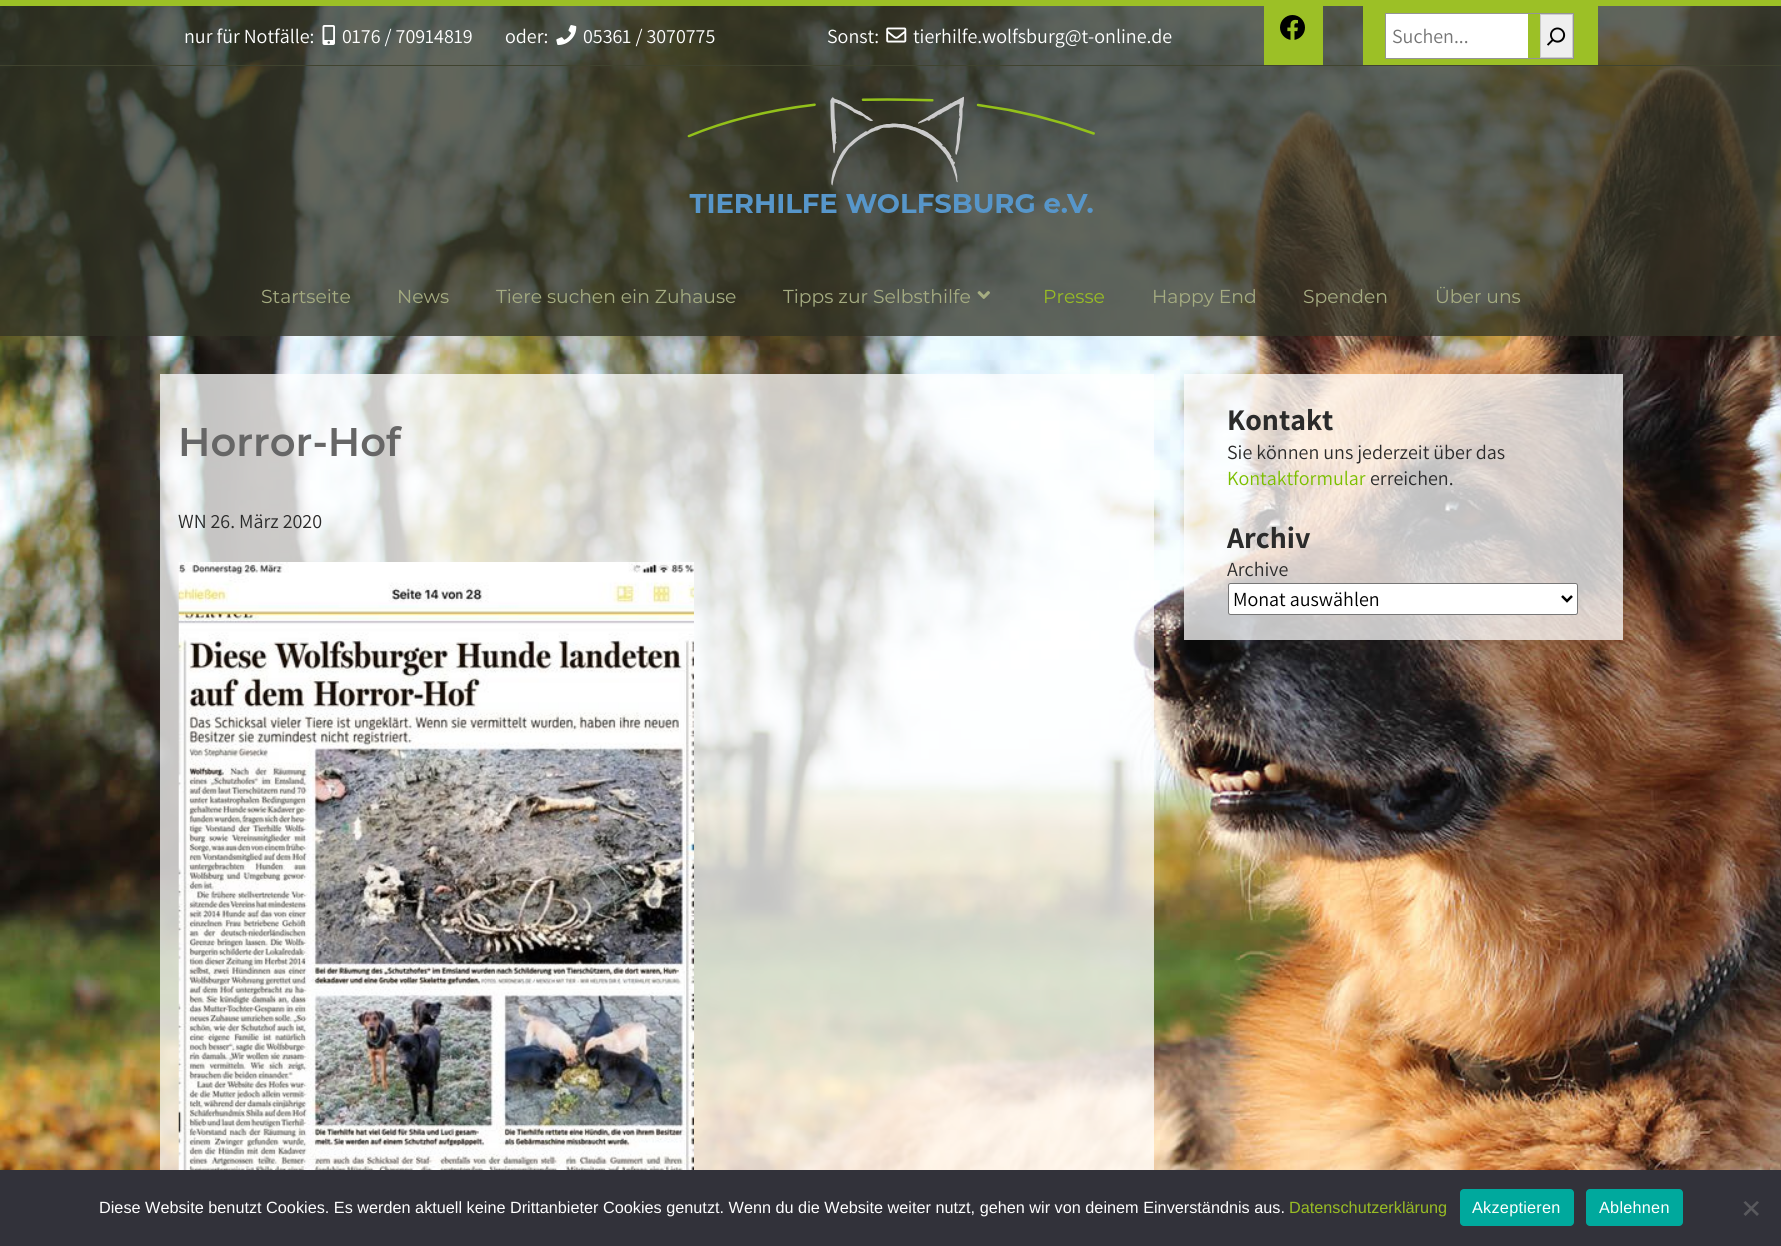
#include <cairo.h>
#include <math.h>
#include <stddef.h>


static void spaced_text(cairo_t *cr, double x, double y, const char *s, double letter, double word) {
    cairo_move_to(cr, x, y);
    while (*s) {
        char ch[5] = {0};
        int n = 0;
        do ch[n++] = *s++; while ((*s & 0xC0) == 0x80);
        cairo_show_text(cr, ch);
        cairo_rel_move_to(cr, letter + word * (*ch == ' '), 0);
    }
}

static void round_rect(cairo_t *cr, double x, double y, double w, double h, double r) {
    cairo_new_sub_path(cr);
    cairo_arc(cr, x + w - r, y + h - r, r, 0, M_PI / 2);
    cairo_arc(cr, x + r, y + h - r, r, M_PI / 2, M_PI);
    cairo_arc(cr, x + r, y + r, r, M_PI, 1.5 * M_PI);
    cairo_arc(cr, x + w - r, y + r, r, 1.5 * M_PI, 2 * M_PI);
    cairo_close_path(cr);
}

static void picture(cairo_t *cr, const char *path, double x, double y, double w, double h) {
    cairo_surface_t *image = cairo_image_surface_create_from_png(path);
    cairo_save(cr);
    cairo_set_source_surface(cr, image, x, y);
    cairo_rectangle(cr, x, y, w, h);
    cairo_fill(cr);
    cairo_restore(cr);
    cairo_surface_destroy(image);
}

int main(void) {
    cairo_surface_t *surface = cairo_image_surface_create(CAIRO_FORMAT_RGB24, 1781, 1246);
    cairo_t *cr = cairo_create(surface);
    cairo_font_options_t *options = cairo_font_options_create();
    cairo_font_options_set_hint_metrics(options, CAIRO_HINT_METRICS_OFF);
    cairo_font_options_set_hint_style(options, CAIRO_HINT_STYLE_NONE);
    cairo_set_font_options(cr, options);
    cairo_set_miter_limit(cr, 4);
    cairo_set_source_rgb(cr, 1, 1, 1);
    cairo_paint(cr);
    picture(cr, "img1.png", 0, 6, 1781, 1164);
    cairo_set_source_rgba(cr, 0.188, 0.196, 0.141, 0.75);
    cairo_rectangle(cr, 0, 6, 1781, 59);
    cairo_fill(cr);
    cairo_set_source_rgb(cr, 0.612, 0.753, 0.149);
    cairo_rectangle(cr, 0, 0, 1781, 6);
    cairo_fill(cr);
    cairo_set_source_rgb(cr, 0.251, 0.263, 0.184);
    cairo_rectangle(cr, 0, 65, 1781, 1);
    cairo_fill(cr);
    cairo_select_font_face(cr, "Assistant", CAIRO_FONT_SLANT_NORMAL, CAIRO_FONT_WEIGHT_NORMAL);
    cairo_set_font_size(cr, 20);
    cairo_set_source_rgb(cr, 1, 1, 1);
    cairo_move_to(cr, 184, 43);
    cairo_show_text(cr, "nur für Notfälle:");
    picture(cr, "img2.png", 322, 25, 13, 20);
    cairo_move_to(cr, 342, 43);
    cairo_show_text(cr, "0176 / 70914819");
    cairo_move_to(cr, 505, 43);
    cairo_show_text(cr, "oder:");
    picture(cr, "img3.png", 556, 25, 21, 20);
    cairo_move_to(cr, 583, 43);
    cairo_show_text(cr, "05361 / 3070775");
    cairo_move_to(cr, 827, 43);
    cairo_show_text(cr, "Sonst:");
    picture(cr, "img4.png", 886, 27, 21, 16);
    cairo_move_to(cr, 913, 43);
    cairo_show_text(cr, "tierhilfe.wolfsburg@t-online.de");
    cairo_set_source_rgb(cr, 0.612, 0.753, 0.149);
    cairo_rectangle(cr, 1264, 6, 59, 59);
    cairo_fill(cr);
    picture(cr, "img5.png", 1280, 15, 25, 25);
    cairo_rectangle(cr, 1363, 6, 235, 59);
    cairo_fill(cr);
    cairo_rectangle(cr, 1385.5, 13.5, 188, 45);
    cairo_set_source_rgb(cr, 0.58, 0.58, 0.58);
    cairo_set_line_width(cr, 1);
    cairo_stroke(cr);
    cairo_set_source_rgb(cr, 1, 1, 1);
    cairo_rectangle(cr, 1386, 14, 142, 44);
    cairo_fill(cr);
    cairo_set_source_rgb(cr, 0.459, 0.459, 0.459);
    cairo_move_to(cr, 1392, 43);
    cairo_show_text(cr, "Suchen...");
    cairo_set_source_rgb(cr, 0.937, 0.937, 0.937);
    cairo_rectangle(cr, 1540.5, 14.5, 32, 43);
    cairo_fill_preserve(cr);
    cairo_set_source_rgb(cr, 0.8, 0.8, 0.8);
    cairo_stroke(cr);
    picture(cr, "img6.png", 1547, 27, 19, 19);
    cairo_set_source_rgba(cr, 0.188, 0.196, 0.141, 0.75);
    cairo_rectangle(cr, 0, 66, 1781, 270);
    cairo_fill(cr);
    picture(cr, "img7.png", 687, 96, 408, 117);
    cairo_select_font_face(cr, "Montserrat", CAIRO_FONT_SLANT_NORMAL, CAIRO_FONT_WEIGHT_NORMAL);
    cairo_set_font_size(cr, 18.75);
    cairo_set_source_rgb(cr, 0.647, 0.675, 0.506);
    cairo_move_to(cr, 261, 303);
    cairo_show_text(cr, "Startseite");
    cairo_move_to(cr, 397, 303);
    cairo_show_text(cr, "News");
    cairo_move_to(cr, 496, 303);
    cairo_show_text(cr, "Tiere suchen ein Zuhause");
    cairo_move_to(cr, 783, 303);
    cairo_show_text(cr, "Tipps zur Selbsthilfe");
    picture(cr, "img8.png", 977, 291, 13, 8);
    cairo_set_source_rgb(cr, 0.596, 0.737, 0.141);
    cairo_move_to(cr, 1043, 303);
    cairo_show_text(cr, "Presse");
    cairo_set_source_rgb(cr, 0.647, 0.675, 0.506);
    cairo_move_to(cr, 1152, 303);
    cairo_show_text(cr, "Happy End");
    cairo_move_to(cr, 1303, 303);
    cairo_show_text(cr, "Spenden");
    cairo_move_to(cr, 1435, 303);
    cairo_show_text(cr, "Über uns");
    cairo_set_source_rgba(cr, 1, 1, 1, 0.75);
    cairo_rectangle(cr, 160, 374, 994, 796);
    cairo_fill(cr);
    cairo_select_font_face(cr, "Montserrat SemiBold", CAIRO_FONT_SLANT_NORMAL, CAIRO_FONT_WEIGHT_NORMAL);
    cairo_set_font_size(cr, 40);
    cairo_set_source_rgb(cr, 0.4, 0.4, 0.4);
    cairo_move_to(cr, 178, 456);
    cairo_show_text(cr, "Horror-Hof");
    cairo_select_font_face(cr, "Assistant", CAIRO_FONT_SLANT_NORMAL, CAIRO_FONT_WEIGHT_NORMAL);
    cairo_set_font_size(cr, 20);
    cairo_set_source_rgb(cr, 0.169, 0.169, 0.169);
    cairo_move_to(cr, 178, 528);
    cairo_show_text(cr, "WN 26. März 2020");
    picture(cr, "img9.png", 178, 562, 516, 608);
    cairo_set_source_rgba(cr, 1, 1, 1, 0.75);
    cairo_rectangle(cr, 1184, 374, 439, 266);
    cairo_fill(cr);
    cairo_select_font_face(cr, "Assistant", CAIRO_FONT_SLANT_NORMAL, CAIRO_FONT_WEIGHT_BOLD);
    cairo_set_font_size(cr, 30);
    cairo_set_source_rgb(cr, 0.169, 0.169, 0.169);
    cairo_move_to(cr, 1227, 430);
    cairo_show_text(cr, "Kontakt");
    cairo_select_font_face(cr, "Assistant", CAIRO_FONT_SLANT_NORMAL, CAIRO_FONT_WEIGHT_NORMAL);
    cairo_set_font_size(cr, 20);
    cairo_move_to(cr, 1227, 459);
    cairo_show_text(cr, "Sie können uns jederzeit über das");
    cairo_set_source_rgb(cr, 0.486, 0.749, 0);
    cairo_move_to(cr, 1227, 485);
    cairo_show_text(cr, "Kontaktformular");
    cairo_set_source_rgb(cr, 0.169, 0.169, 0.169);
    cairo_move_to(cr, 1370, 485);
    cairo_show_text(cr, "erreichen.");
    cairo_select_font_face(cr, "Assistant", CAIRO_FONT_SLANT_NORMAL, CAIRO_FONT_WEIGHT_BOLD);
    cairo_set_font_size(cr, 30);
    cairo_move_to(cr, 1227, 548);
    cairo_show_text(cr, "Archiv");
    cairo_select_font_face(cr, "Assistant", CAIRO_FONT_SLANT_NORMAL, CAIRO_FONT_WEIGHT_NORMAL);
    cairo_set_font_size(cr, 20);
    cairo_move_to(cr, 1227, 576);
    cairo_show_text(cr, "Archive");
    cairo_set_source_rgb(cr, 1, 1, 1);
    round_rect(cr, 1228.5, 583.5, 349, 31, 2);
    cairo_fill_preserve(cr);
    cairo_set_source_rgb(cr, 0.463, 0.463, 0.463);
    cairo_stroke(cr);
    cairo_new_path(cr);
    cairo_move_to(cr, 1562, 596);
    cairo_line_to(cr, 1567, 601);
    cairo_line_to(cr, 1572, 596);
    cairo_set_source_rgb(cr, 0, 0, 0);
    cairo_set_line_width(cr, 2.5);
    cairo_stroke(cr);
    cairo_move_to(cr, 1233, 606);
    cairo_show_text(cr, "Monat auswählen");
    cairo_set_source_rgb(cr, 0.196, 0.196, 0.227);
    cairo_rectangle(cr, 0, 1170, 1781, 76);
    cairo_fill(cr);
    cairo_select_font_face(cr, "Liberation Sans", CAIRO_FONT_SLANT_NORMAL, CAIRO_FONT_WEIGHT_NORMAL);
    cairo_set_font_size(cr, 16.25);
    cairo_set_source_rgb(cr, 1, 1, 1);
    cairo_move_to(cr, 99, 1213);
    cairo_show_text(cr, "Diese Website benutzt Cookies. Es werden aktuell keine Drittanbieter Cookies genutzt. Wenn du die Website weiter nutzt, gehen wir von deinem Einverständnis aus.");
    cairo_set_source_rgb(cr, 0.596, 0.737, 0.141);
    cairo_move_to(cr, 1289, 1213);
    cairo_show_text(cr, "Datenschutzerklärung");
    cairo_set_source_rgb(cr, 0, 0.663, 0.616);
    round_rect(cr, 1460, 1189, 114, 37, 4);
    cairo_fill(cr);
    cairo_set_source_rgb(cr, 1, 1, 1);
    spaced_text(cr, 1472, 1213, "Akzeptieren", 0.25, 0);
    cairo_set_source_rgb(cr, 0, 0.663, 0.616);
    round_rect(cr, 1586, 1189, 97, 37, 4);
    cairo_fill(cr);
    cairo_set_source_rgb(cr, 1, 1, 1);
    spaced_text(cr, 1599, 1213, "Ablehnen", 0.25, 0);
    cairo_set_source_rgb(cr, 0.349, 0.349, 0.365);
    cairo_new_path(cr);
    cairo_move_to(cr, 1757, 1201);
    cairo_line_to(cr, 1759, 1202.5);
    cairo_line_to(cr, 1745.5, 1216);
    cairo_line_to(cr, 1743.5, 1214);
    cairo_close_path(cr);
    cairo_fill(cr);
    cairo_new_path(cr);
    cairo_move_to(cr, 1743.5, 1202.5);
    cairo_line_to(cr, 1745.5, 1201);
    cairo_line_to(cr, 1759, 1214);
    cairo_line_to(cr, 1757, 1216);
    cairo_close_path(cr);
    cairo_fill(cr);
    cairo_surface_write_to_png(surface, "page.png");
    cairo_font_options_destroy(options);
    cairo_destroy(cr);
    cairo_surface_destroy(surface);
    return 0;
}
